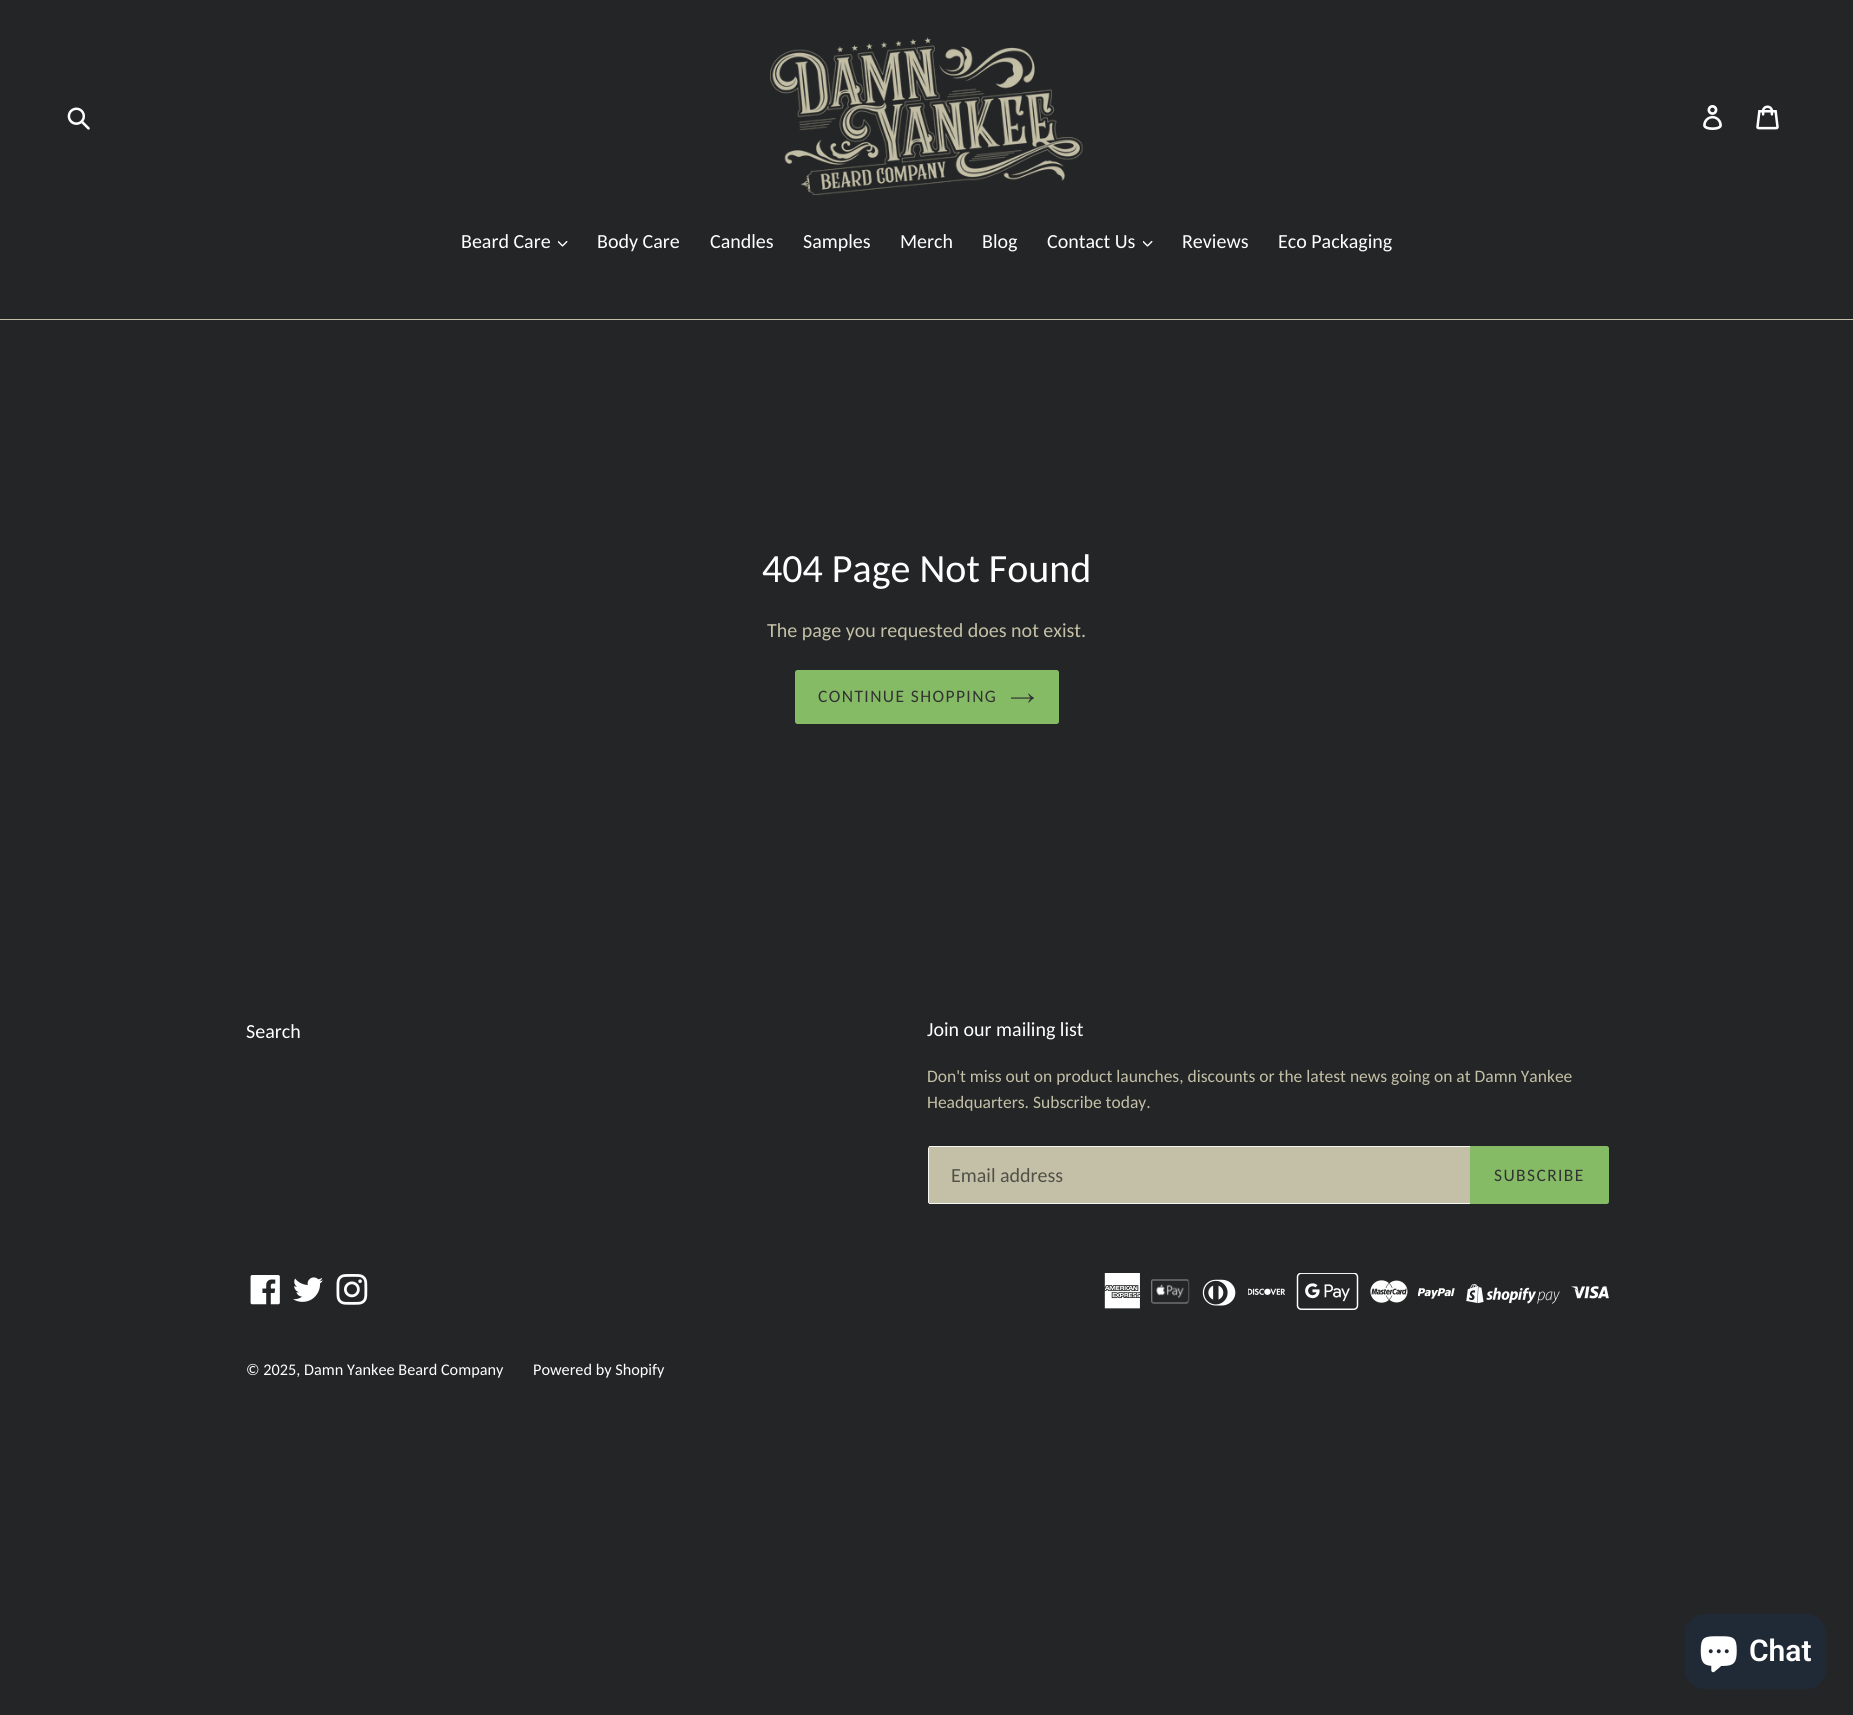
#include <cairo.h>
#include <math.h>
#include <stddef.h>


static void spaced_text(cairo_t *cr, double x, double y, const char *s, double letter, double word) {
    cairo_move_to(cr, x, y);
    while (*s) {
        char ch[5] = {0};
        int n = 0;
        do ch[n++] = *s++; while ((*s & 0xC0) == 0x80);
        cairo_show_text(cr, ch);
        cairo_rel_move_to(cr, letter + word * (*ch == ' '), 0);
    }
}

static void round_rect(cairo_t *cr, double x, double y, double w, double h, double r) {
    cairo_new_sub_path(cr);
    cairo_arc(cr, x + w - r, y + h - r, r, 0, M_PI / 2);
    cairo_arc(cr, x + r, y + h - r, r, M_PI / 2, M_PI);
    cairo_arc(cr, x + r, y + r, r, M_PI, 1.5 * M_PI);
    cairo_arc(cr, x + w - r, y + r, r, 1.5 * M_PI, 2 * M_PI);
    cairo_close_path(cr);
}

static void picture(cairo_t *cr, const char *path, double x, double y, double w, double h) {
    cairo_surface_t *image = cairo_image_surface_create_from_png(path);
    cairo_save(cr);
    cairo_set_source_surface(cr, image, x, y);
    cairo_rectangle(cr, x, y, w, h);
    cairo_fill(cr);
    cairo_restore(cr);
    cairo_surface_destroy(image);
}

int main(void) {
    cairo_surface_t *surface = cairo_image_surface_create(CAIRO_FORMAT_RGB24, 1853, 1715);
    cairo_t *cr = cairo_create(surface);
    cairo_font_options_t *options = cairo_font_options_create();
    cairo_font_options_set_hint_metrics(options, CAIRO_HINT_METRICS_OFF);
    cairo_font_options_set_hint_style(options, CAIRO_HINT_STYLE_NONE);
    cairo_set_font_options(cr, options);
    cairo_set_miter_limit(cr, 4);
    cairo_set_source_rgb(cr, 0.141, 0.145, 0.149);
    cairo_paint(cr);
    picture(cr, "img1.png", 67, 107, 23, 23);
    picture(cr, "img2.png", 770, 37, 313, 158);
    picture(cr, "img3.png", 1703, 105, 19, 25);
    picture(cr, "img4.png", 1756, 105, 23, 25);
    cairo_set_source_rgb(cr, 0.769, 0.753, 0.655);
    cairo_rectangle(cr, 0, 319, 1853, 1);
    cairo_fill(cr);
    cairo_select_font_face(cr, "Carlito", CAIRO_FONT_SLANT_NORMAL, CAIRO_FONT_WEIGHT_NORMAL);
    cairo_set_font_size(cr, 20);
    cairo_set_source_rgb(cr, 1, 1, 1);
    cairo_move_to(cr, 461, 248);
    cairo_show_text(cr, "Beard Care");
    picture(cr, "img5.png", 558, 240, 10, 7);
    cairo_move_to(cr, 597, 248);
    cairo_show_text(cr, "Body Care");
    cairo_move_to(cr, 710, 248);
    cairo_show_text(cr, "Candles");
    cairo_move_to(cr, 803, 248);
    cairo_show_text(cr, "Samples");
    cairo_move_to(cr, 900, 248);
    cairo_show_text(cr, "Merch");
    cairo_move_to(cr, 982, 248);
    cairo_show_text(cr, "Blog");
    cairo_move_to(cr, 1047, 248);
    cairo_show_text(cr, "Contact Us");
    picture(cr, "img5.png", 1143, 240, 10, 7);
    cairo_move_to(cr, 1182, 248);
    cairo_show_text(cr, "Reviews");
    cairo_move_to(cr, 1278, 248);
    cairo_show_text(cr, "Eco Packaging");
    cairo_set_font_size(cr, 40);
    cairo_move_to(cr, 762, 582);
    cairo_show_text(cr, "404 Page Not Found");
    cairo_set_font_size(cr, 20);
    cairo_set_source_rgb(cr, 0.769, 0.753, 0.655);
    cairo_move_to(cr, 767, 637);
    cairo_show_text(cr, "The page you requested does not exist.");
    cairo_set_source_rgb(cr, 0.522, 0.733, 0.396);
    round_rect(cr, 795, 670, 264, 54, 2.5);
    cairo_fill(cr);
    cairo_set_font_size(cr, 17.5);
    cairo_set_source_rgb(cr, 0.196, 0.196, 0.2);
    spaced_text(cr, 818, 702, "CONTINUE SHOPPING", 1.4, 0);
    picture(cr, "img6.png", 1011, 693, 23, 10);
    cairo_set_font_size(cr, 20);
    cairo_set_source_rgb(cr, 1, 1, 1);
    cairo_move_to(cr, 246, 1038);
    cairo_show_text(cr, "Search");
    cairo_move_to(cr, 927, 1036);
    cairo_show_text(cr, "Join our mailing list");
    cairo_set_font_size(cr, 17.5);
    cairo_set_source_rgb(cr, 0.769, 0.753, 0.655);
    cairo_move_to(cr, 927, 1082);
    cairo_show_text(cr, "Don't miss out on product launches, discounts or the latest news going on at Damn Yankee");
    cairo_move_to(cr, 927, 1108);
    cairo_show_text(cr, "Headquarters. Subscribe today.");
    cairo_new_path(cr);
    cairo_move_to(cr, 930.5, 1146);
    cairo_line_to(cr, 1470, 1146);
    cairo_line_to(cr, 1470, 1204);
    cairo_line_to(cr, 930.5, 1204);
    cairo_curve_to(cr, 929, 1204, 928, 1203, 928, 1201.5);
    cairo_line_to(cr, 928, 1148.5);
    cairo_curve_to(cr, 928, 1147, 929, 1146, 930.5, 1146);
    cairo_close_path(cr);
    cairo_fill(cr);
    cairo_set_source_rgba(cr, 1, 1, 1, 0.85);
    cairo_rectangle(cr, 929, 1146, 541, 1);
    cairo_fill(cr);
    cairo_rectangle(cr, 929, 1203, 541, 1);
    cairo_fill(cr);
    cairo_rectangle(cr, 928, 1148, 1, 55);
    cairo_fill(cr);
    cairo_set_font_size(cr, 20);
    cairo_set_source_rgb(cr, 0.314, 0.314, 0.282);
    cairo_move_to(cr, 951, 1182);
    cairo_show_text(cr, "Email address");
    cairo_set_source_rgb(cr, 0.522, 0.733, 0.396);
    cairo_new_path(cr);
    cairo_move_to(cr, 1470, 1146);
    cairo_line_to(cr, 1606.5, 1146);
    cairo_curve_to(cr, 1608, 1146, 1609, 1147, 1609, 1148.5);
    cairo_line_to(cr, 1609, 1201.5);
    cairo_curve_to(cr, 1609, 1203, 1608, 1204, 1606.5, 1204);
    cairo_line_to(cr, 1470, 1204);
    cairo_close_path(cr);
    cairo_fill(cr);
    cairo_set_font_size(cr, 17.5);
    cairo_set_source_rgb(cr, 0.196, 0.196, 0.2);
    spaced_text(cr, 1494, 1181, "SUBSCRIBE", 1.4, 0);
    picture(cr, "img7.png", 250, 1275, 30, 30);
    picture(cr, "img8.png", 293, 1277, 30, 25);
    picture(cr, "img9.png", 336, 1274, 32, 31);
    picture(cr, "img10.png", 1104, 1273, 37, 36);
    picture(cr, "img11.png", 1151, 1279, 39, 25);
    picture(cr, "img12.png", 1202, 1279, 34, 27);
    picture(cr, "img13.png", 1248, 1288, 37, 7);
    picture(cr, "img14.png", 1296, 1273, 63, 37);
    picture(cr, "img15.png", 1370, 1280, 38, 23);
    picture(cr, "img16.png", 1418, 1288, 37, 11);
    picture(cr, "img17.png", 1466, 1284, 94, 20);
    picture(cr, "img18.png", 1571, 1286, 38, 13);
    cairo_set_font_size(cr, 16.25);
    cairo_set_source_rgb(cr, 1, 1, 1);
    cairo_move_to(cr, 246, 1375);
    cairo_show_text(cr, "© 2025, Damn Yankee Beard Company");
    cairo_move_to(cr, 533, 1375);
    cairo_show_text(cr, "Powered by Shopify");
    cairo_set_source_rgb(cr, 0.125, 0.165, 0.212);
    round_rect(cr, 1685, 1614, 141, 75, 20);
    cairo_fill(cr);
    picture(cr, "img19.png", 1700, 1636, 37, 37);
    cairo_select_font_face(cr, "Roboto SemiBold", CAIRO_FONT_SLANT_NORMAL, CAIRO_FONT_WEIGHT_NORMAL);
    cairo_set_font_size(cr, 30);
    cairo_set_source_rgb(cr, 1, 1, 1);
    cairo_move_to(cr, 1749, 1661);
    cairo_show_text(cr, "Chat");
    cairo_surface_write_to_png(surface, "page.png");
    cairo_font_options_destroy(options);
    cairo_destroy(cr);
    cairo_surface_destroy(surface);
    return 0;
}
